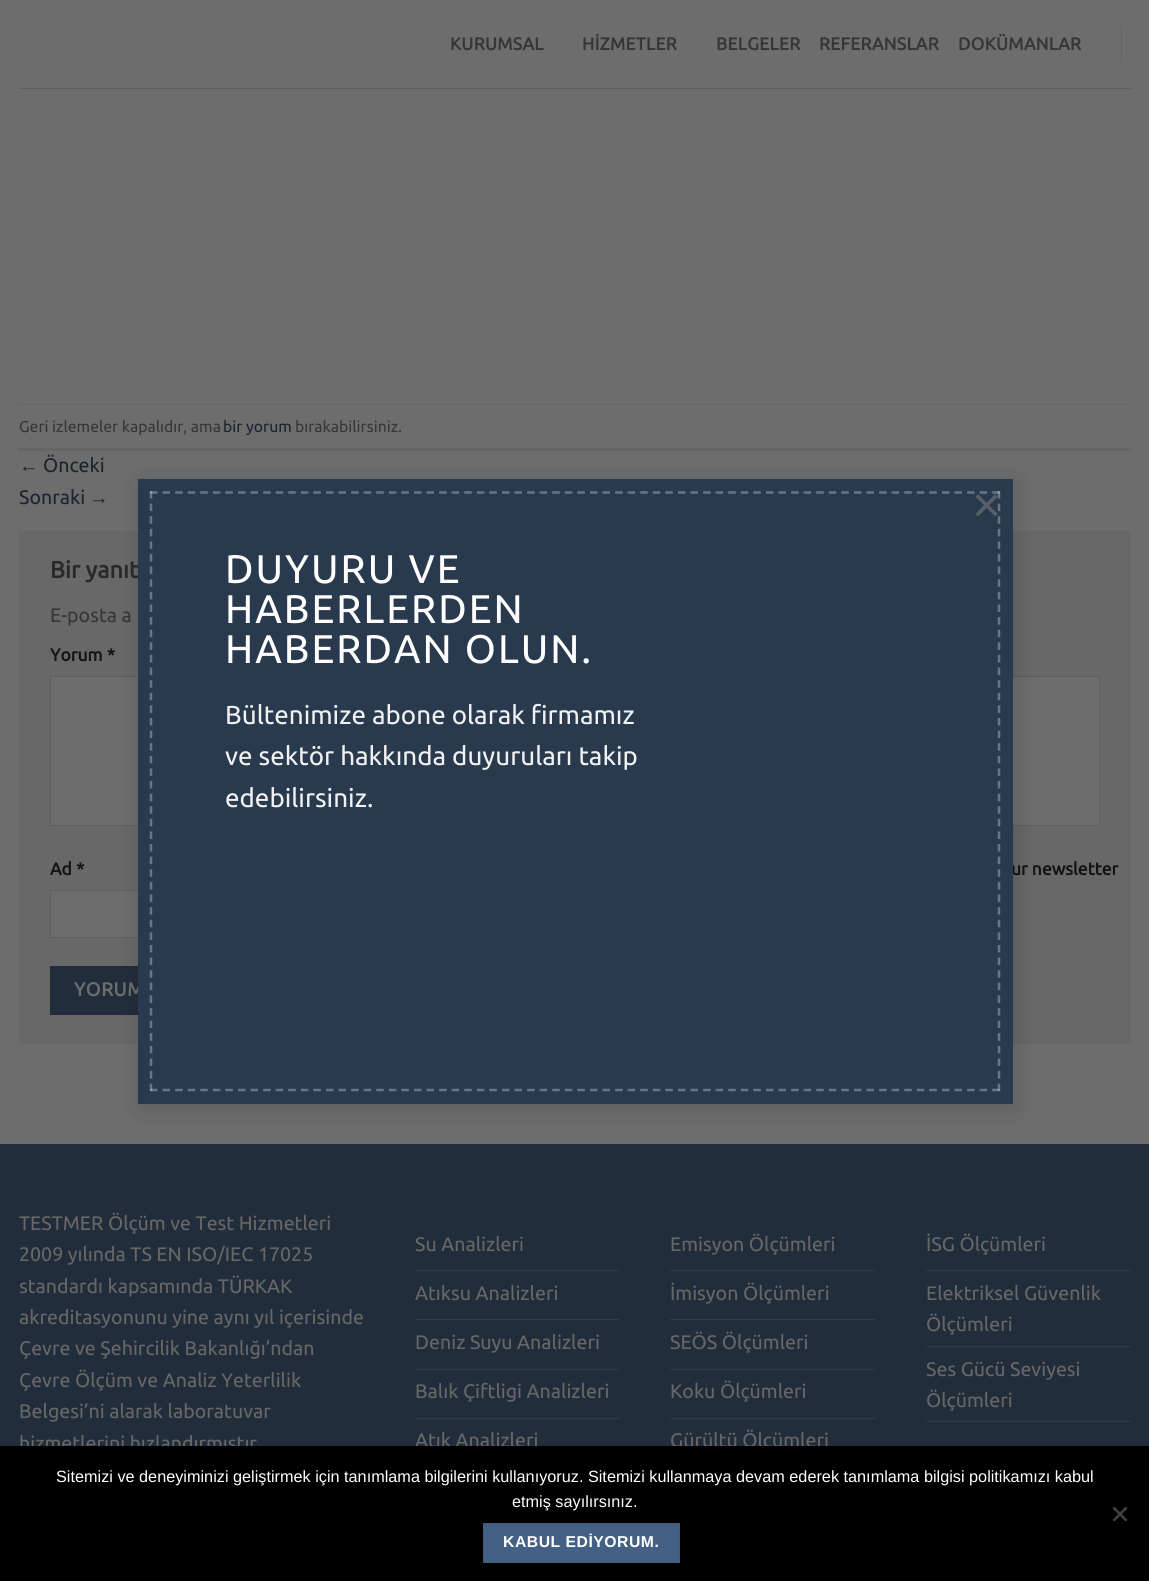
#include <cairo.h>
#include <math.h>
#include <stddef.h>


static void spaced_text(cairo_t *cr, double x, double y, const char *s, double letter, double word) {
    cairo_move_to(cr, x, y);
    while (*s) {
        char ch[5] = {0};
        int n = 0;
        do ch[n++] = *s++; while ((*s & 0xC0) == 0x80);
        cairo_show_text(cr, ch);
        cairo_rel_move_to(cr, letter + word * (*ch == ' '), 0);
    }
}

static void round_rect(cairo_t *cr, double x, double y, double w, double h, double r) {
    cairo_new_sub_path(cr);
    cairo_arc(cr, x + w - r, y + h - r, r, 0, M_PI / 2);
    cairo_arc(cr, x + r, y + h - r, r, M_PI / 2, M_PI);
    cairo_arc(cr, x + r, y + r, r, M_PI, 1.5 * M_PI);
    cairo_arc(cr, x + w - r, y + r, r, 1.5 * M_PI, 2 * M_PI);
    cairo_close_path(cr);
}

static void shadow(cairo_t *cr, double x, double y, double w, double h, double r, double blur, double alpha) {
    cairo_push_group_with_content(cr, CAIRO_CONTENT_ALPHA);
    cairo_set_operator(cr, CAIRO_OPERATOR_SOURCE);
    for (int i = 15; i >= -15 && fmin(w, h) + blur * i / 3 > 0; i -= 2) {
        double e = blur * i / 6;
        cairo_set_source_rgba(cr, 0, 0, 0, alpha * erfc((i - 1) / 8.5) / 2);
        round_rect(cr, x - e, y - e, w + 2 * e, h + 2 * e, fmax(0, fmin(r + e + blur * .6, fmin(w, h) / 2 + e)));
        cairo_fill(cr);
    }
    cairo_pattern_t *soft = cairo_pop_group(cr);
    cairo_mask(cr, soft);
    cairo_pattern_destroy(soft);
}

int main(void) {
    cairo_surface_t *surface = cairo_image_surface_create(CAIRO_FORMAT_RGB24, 1149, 1581);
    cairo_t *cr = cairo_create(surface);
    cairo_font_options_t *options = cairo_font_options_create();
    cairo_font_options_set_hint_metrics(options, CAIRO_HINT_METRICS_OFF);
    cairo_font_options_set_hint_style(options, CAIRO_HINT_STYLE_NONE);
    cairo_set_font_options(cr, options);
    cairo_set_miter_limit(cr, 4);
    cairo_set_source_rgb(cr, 0.427, 0.427, 0.427);
    cairo_paint(cr);
    cairo_select_font_face(cr, "Ubuntu", CAIRO_FONT_SLANT_NORMAL, CAIRO_FONT_WEIGHT_BOLD);
    cairo_set_font_size(cr, 17.5);
    cairo_set_source_rgb(cr, 0.212, 0.212, 0.212);
    spaced_text(cr, 450, 50, "KURUMSAL", 0.3, 0);
    spaced_text(cr, 582, 50, "HİZMETLER", 0.3, 0);
    spaced_text(cr, 716, 50, "BELGELER", 0.3, 0);
    spaced_text(cr, 819, 50, "REFERANSLAR", 0.3, 0);
    spaced_text(cr, 958, 50, "DOKÜMANLAR", 0.3, 0);
    cairo_set_source_rgb(cr, 0.388, 0.388, 0.388);
    cairo_rectangle(cr, 1121, 25, 1, 38);
    cairo_fill(cr);
    cairo_set_source_rgb(cr, 0.376, 0.376, 0.376);
    cairo_rectangle(cr, 19, 88, 1112, 1);
    cairo_fill(cr);
    cairo_set_source_rgb(cr, 0.396, 0.396, 0.396);
    cairo_rectangle(cr, 19, 404, 1112, 1);
    cairo_fill(cr);
    cairo_rectangle(cr, 19, 448, 1112, 3);
    cairo_fill(cr);
    cairo_select_font_face(cr, "Ubuntu", CAIRO_FONT_SLANT_NORMAL, CAIRO_FONT_WEIGHT_NORMAL);
    cairo_set_font_size(cr, 15.75);
    cairo_set_source_rgb(cr, 0.212, 0.212, 0.212);
    cairo_move_to(cr, 19, 432);
    cairo_show_text(cr, "Geri izlemeler kapalıdır, ama");
    cairo_set_source_rgb(cr, 0.106, 0.137, 0.18);
    cairo_move_to(cr, 223, 432);
    cairo_show_text(cr, "bir yorum");
    cairo_set_source_rgb(cr, 0.212, 0.212, 0.212);
    cairo_move_to(cr, 295, 432);
    cairo_show_text(cr, "bırakabilirsiniz.");
    cairo_select_font_face(cr, "Liberation Sans", CAIRO_FONT_SLANT_NORMAL, CAIRO_FONT_WEIGHT_NORMAL);
    cairo_set_font_size(cr, 19.6);
    cairo_set_source_rgb(cr, 0.106, 0.137, 0.18);
    cairo_move_to(cr, 19, 472);
    cairo_show_text(cr, "←");
    cairo_select_font_face(cr, "Ubuntu", CAIRO_FONT_SLANT_NORMAL, CAIRO_FONT_WEIGHT_NORMAL);
    cairo_move_to(cr, 43, 472);
    cairo_show_text(cr, "Önceki");
    cairo_move_to(cr, 19, 504);
    cairo_show_text(cr, "Sonraki");
    cairo_select_font_face(cr, "Liberation Sans", CAIRO_FONT_SLANT_NORMAL, CAIRO_FONT_WEIGHT_NORMAL);
    cairo_move_to(cr, 89, 504);
    cairo_show_text(cr, "→");
    cairo_set_source_rgb(cr, 0.408, 0.408, 0.408);
    cairo_rectangle(cr, 19, 531, 1112, 513);
    cairo_fill(cr);
    cairo_select_font_face(cr, "Ubuntu", CAIRO_FONT_SLANT_NORMAL, CAIRO_FONT_WEIGHT_BOLD);
    cairo_set_font_size(cr, 23.5);
    cairo_set_source_rgb(cr, 0.161, 0.161, 0.161);
    cairo_move_to(cr, 50, 578);
    cairo_show_text(cr, "Bir yanıt");
    cairo_select_font_face(cr, "Ubuntu", CAIRO_FONT_SLANT_NORMAL, CAIRO_FONT_WEIGHT_NORMAL);
    cairo_set_font_size(cr, 19.6);
    cairo_set_source_rgb(cr, 0.212, 0.212, 0.212);
    cairo_move_to(cr, 50, 622);
    cairo_show_text(cr, "E-posta a");
    cairo_select_font_face(cr, "Ubuntu", CAIRO_FONT_SLANT_NORMAL, CAIRO_FONT_WEIGHT_BOLD);
    cairo_set_font_size(cr, 17.5);
    cairo_set_source_rgb(cr, 0.078, 0.078, 0.078);
    cairo_move_to(cr, 50, 661);
    cairo_show_text(cr, "Yorum *");
    cairo_set_source_rgb(cr, 0.427, 0.427, 0.427);
    cairo_rectangle(cr, 50.5, 676.5, 1049, 149);
    cairo_fill_preserve(cr);
    cairo_set_source_rgb(cr, 0.373, 0.373, 0.373);
    cairo_set_line_width(cr, 1);
    cairo_stroke(cr);
    cairo_set_source_rgb(cr, 0.078, 0.078, 0.078);
    cairo_move_to(cr, 50, 875);
    cairo_show_text(cr, "Ad *");
    cairo_set_source_rgb(cr, 0.427, 0.427, 0.427);
    cairo_rectangle(cr, 51, 891, 87, 46);
    cairo_fill(cr);
    cairo_rectangle(cr, 50.5, 890.5, 238, 47);
    cairo_set_source_rgb(cr, 0.373, 0.373, 0.373);
    cairo_stroke(cr);
    cairo_set_source_rgb(cr, 0.078, 0.078, 0.078);
    cairo_move_to(cr, 1011, 875);
    cairo_show_text(cr, "ur newsletter");
    cairo_set_source_rgb(cr, 0.133, 0.176, 0.231);
    cairo_rectangle(cr, 51, 967, 87, 47);
    cairo_fill(cr);
    cairo_rectangle(cr, 50.5, 966.5, 204, 48);
    cairo_set_source_rgb(cr, 0.129, 0.169, 0.224);
    cairo_stroke(cr);
    cairo_set_font_size(cr, 19);
    cairo_set_source_rgb(cr, 0.427, 0.427, 0.427);
    spaced_text(cr, 74, 996, "YORUM", 0.5, 0);
    cairo_set_source_rgb(cr, 0.133, 0.176, 0.231);
    cairo_rectangle(cr, 0, 1145, 1149, 301);
    cairo_fill(cr);
    cairo_set_source_rgb(cr, 0.129, 0.169, 0.224);
    cairo_rectangle(cr, 0, 1144, 1149, 1);
    cairo_fill(cr);
    cairo_select_font_face(cr, "Ubuntu", CAIRO_FONT_SLANT_NORMAL, CAIRO_FONT_WEIGHT_NORMAL);
    cairo_set_font_size(cr, 19.6);
    cairo_set_source_rgb(cr, 0.404, 0.404, 0.404);
    cairo_move_to(cr, 19, 1230);
    cairo_show_text(cr, "TESTMER Ölçüm ve Test Hizmetleri");
    cairo_move_to(cr, 19, 1261);
    cairo_show_text(cr, "2009 yılında TS EN ISO/IEC 17025");
    cairo_move_to(cr, 19, 1293);
    cairo_show_text(cr, "standardı kapsamında TÜRKAK");
    cairo_move_to(cr, 19, 1324);
    cairo_show_text(cr, "akreditasyonunu yine aynı yıl içerisinde");
    cairo_move_to(cr, 19, 1355);
    cairo_show_text(cr, "Çevre ve Şehircilik Bakanlığı’ndan");
    cairo_move_to(cr, 19, 1387);
    cairo_show_text(cr, "Çevre Ölçüm ve Analiz Yeterlilik");
    cairo_move_to(cr, 19, 1418);
    cairo_show_text(cr, "Belgesi’ni alarak laboratuvar");
    cairo_move_to(cr, 19, 1450);
    cairo_show_text(cr, "hizmetlerini hızlandırmıştır");
    cairo_set_source_rgb(cr, 0.192, 0.227, 0.271);
    cairo_rectangle(cr, 415, 1270, 205, 1);
    cairo_fill(cr);
    cairo_set_source_rgb(cr, 0.404, 0.404, 0.404);
    cairo_move_to(cr, 415, 1251);
    cairo_show_text(cr, "Su Analizleri");
    cairo_set_source_rgb(cr, 0.192, 0.227, 0.271);
    cairo_rectangle(cr, 415, 1319, 205, 1);
    cairo_fill(cr);
    cairo_set_source_rgb(cr, 0.404, 0.404, 0.404);
    cairo_move_to(cr, 415, 1300);
    cairo_show_text(cr, "Atıksu Analizleri");
    cairo_set_source_rgb(cr, 0.192, 0.227, 0.271);
    cairo_rectangle(cr, 415, 1369, 205, 1);
    cairo_fill(cr);
    cairo_set_source_rgb(cr, 0.404, 0.404, 0.404);
    cairo_move_to(cr, 415, 1349);
    cairo_show_text(cr, "Deniz Suyu Analizleri");
    cairo_set_source_rgb(cr, 0.192, 0.227, 0.271);
    cairo_rectangle(cr, 415, 1418, 205, 1);
    cairo_fill(cr);
    cairo_set_source_rgb(cr, 0.404, 0.404, 0.404);
    cairo_move_to(cr, 415, 1398);
    cairo_show_text(cr, "Balık Çiftligi Analizleri");
    cairo_move_to(cr, 415, 1447);
    cairo_show_text(cr, "Atık Analizleri");
    cairo_set_source_rgb(cr, 0.192, 0.227, 0.271);
    cairo_rectangle(cr, 670, 1270, 206, 1);
    cairo_fill(cr);
    cairo_set_source_rgb(cr, 0.404, 0.404, 0.404);
    cairo_move_to(cr, 670, 1251);
    cairo_show_text(cr, "Emisyon Ölçümleri");
    cairo_set_source_rgb(cr, 0.192, 0.227, 0.271);
    cairo_rectangle(cr, 670, 1319, 206, 1);
    cairo_fill(cr);
    cairo_set_source_rgb(cr, 0.404, 0.404, 0.404);
    cairo_move_to(cr, 670, 1300);
    cairo_show_text(cr, "İmisyon Ölçümleri");
    cairo_set_source_rgb(cr, 0.192, 0.227, 0.271);
    cairo_rectangle(cr, 670, 1369, 206, 1);
    cairo_fill(cr);
    cairo_set_source_rgb(cr, 0.404, 0.404, 0.404);
    cairo_move_to(cr, 670, 1349);
    cairo_show_text(cr, "SEÖS Ölçümleri");
    cairo_set_source_rgb(cr, 0.192, 0.227, 0.271);
    cairo_rectangle(cr, 670, 1418, 206, 1);
    cairo_fill(cr);
    cairo_set_source_rgb(cr, 0.404, 0.404, 0.404);
    cairo_move_to(cr, 670, 1398);
    cairo_show_text(cr, "Koku Ölçümleri");
    cairo_move_to(cr, 670, 1447);
    cairo_show_text(cr, "Gürültü Ölçümleri");
    cairo_set_source_rgb(cr, 0.192, 0.227, 0.271);
    cairo_rectangle(cr, 926, 1270, 205, 1);
    cairo_fill(cr);
    cairo_set_source_rgb(cr, 0.404, 0.404, 0.404);
    cairo_move_to(cr, 926, 1251);
    cairo_show_text(cr, "İSG Ölçümleri");
    cairo_set_source_rgb(cr, 0.192, 0.227, 0.271);
    cairo_rectangle(cr, 926, 1346, 205, 1);
    cairo_fill(cr);
    cairo_set_source_rgb(cr, 0.404, 0.404, 0.404);
    cairo_move_to(cr, 926, 1300);
    cairo_show_text(cr, "Elektriksel Güvenlik");
    cairo_move_to(cr, 926, 1331);
    cairo_show_text(cr, "Ölçümleri");
    cairo_set_source_rgb(cr, 0.192, 0.227, 0.271);
    cairo_rectangle(cr, 926, 1421, 205, 1);
    cairo_fill(cr);
    cairo_set_source_rgb(cr, 0.404, 0.404, 0.404);
    cairo_move_to(cr, 926, 1376);
    cairo_show_text(cr, "Ses Gücü Seviyesi");
    cairo_move_to(cr, 926, 1407);
    cairo_show_text(cr, "Ölçümleri");
    cairo_set_source_rgb(cr, 0, 0, 0);
    shadow(cr, 141, 483, 875, 625, 0, 12.5, 0.15);
    cairo_set_source_rgb(cr, 0.161, 0.227, 0.31);
    cairo_rectangle(cr, 138, 479, 875, 625);
    cairo_fill(cr);
    cairo_new_path(cr);
    cairo_move_to(cr, 150, 492.5);
    cairo_line_to(cr, 1000, 492.5);
    cairo_set_source_rgb(cr, 0.412, 0.459, 0.518);
    cairo_set_line_width(cr, 2.5);
    cairo_set_dash(cr, (double[]){7.5, 5.07}, 2, 0);
    cairo_stroke(cr);
    cairo_new_path(cr);
    cairo_move_to(cr, 999, 491);
    cairo_line_to(cr, 999, 1091);
    cairo_set_source_rgba(cr, 1, 1, 1, 0.3);
    cairo_set_dash(cr, (double[]){7.5, 5.11}, 2, 0);
    cairo_stroke(cr);
    cairo_select_font_face(cr, "Liberation Sans", CAIRO_FONT_SLANT_NORMAL, CAIRO_FONT_WEIGHT_NORMAL);
    cairo_set_font_size(cr, 50);
    cairo_set_source_rgb(cr, 0.345, 0.373, 0.404);
    spaced_text(cr, 972, 522, "×", 2, 0);
    cairo_new_path(cr);
    cairo_move_to(cr, 150, 1090);
    cairo_line_to(cr, 1000, 1090);
    cairo_set_source_rgba(cr, 1, 1, 1, 0.3);
    cairo_set_dash(cr, (double[]){7.5, 5.07}, 2, 0);
    cairo_stroke(cr);
    cairo_new_path(cr);
    cairo_move_to(cr, 151, 491);
    cairo_line_to(cr, 151, 1091);
    cairo_set_dash(cr, (double[]){7.5, 5.11}, 2, 0);
    cairo_stroke(cr);
    cairo_select_font_face(cr, "Ubuntu", CAIRO_FONT_SLANT_NORMAL, CAIRO_FONT_WEIGHT_NORMAL);
    cairo_set_font_size(cr, 40);
    cairo_set_source_rgb(cr, 1, 1, 1);
    spaced_text(cr, 225, 583, "DUYURU VE", 2, 0);
    spaced_text(cr, 225, 623, "HABERLERDEN", 2, 0);
    spaced_text(cr, 225, 663, "HABERDAN OLUN.", 2, 0);
    cairo_set_font_size(cr, 26);
    cairo_set_source_rgb(cr, 0.945, 0.945, 0.945);
    cairo_move_to(cr, 225, 724);
    cairo_show_text(cr, "Bültenimize abone olarak firmamız");
    cairo_move_to(cr, 225, 765);
    cairo_show_text(cr, "ve sektör hakkında duyuruları takip");
    cairo_move_to(cr, 225, 807);
    cairo_show_text(cr, "edebilirsiniz.");
    cairo_set_source_rgb(cr, 0, 0, 0);
    cairo_rectangle(cr, 0, 1446, 1149, 135);
    cairo_fill(cr);
    cairo_select_font_face(cr, "Liberation Sans", CAIRO_FONT_SLANT_NORMAL, CAIRO_FONT_WEIGHT_NORMAL);
    cairo_set_font_size(cr, 16.25);
    cairo_set_source_rgb(cr, 1, 1, 1);
    cairo_move_to(cr, 56, 1482);
    cairo_show_text(cr, "Sitemizi ve deneyiminizi geliştirmek için tanımlama bilgilerini kullanıyoruz. Sitemizi kullanmaya devam ederek tanımlama bilgisi politikamızı kabul");
    cairo_move_to(cr, 512, 1507);
    cairo_show_text(cr, "etmiş sayılırsınız.");
    cairo_set_source_rgb(cr, 0.251, 0.251, 0.251);
    cairo_new_path(cr);
    cairo_move_to(cr, 1125.5, 1506.5);
    cairo_line_to(cr, 1127.5, 1508.5);
    cairo_line_to(cr, 1114.5, 1521.5);
    cairo_line_to(cr, 1112.5, 1520);
    cairo_close_path(cr);
    cairo_fill(cr);
    cairo_new_path(cr);
    cairo_move_to(cr, 1112.5, 1508.5);
    cairo_line_to(cr, 1114.5, 1506.5);
    cairo_line_to(cr, 1127.5, 1520);
    cairo_line_to(cr, 1125.5, 1521.5);
    cairo_close_path(cr);
    cairo_fill(cr);
    cairo_set_source_rgb(cr, 0.267, 0.376, 0.518);
    cairo_rectangle(cr, 483.5, 1523.5, 196, 39);
    cairo_fill_preserve(cr);
    cairo_set_source_rgb(cr, 0.255, 0.357, 0.49);
    cairo_set_line_width(cr, 1);
    cairo_set_dash(cr, NULL, 0, 0);
    cairo_stroke(cr);
    cairo_select_font_face(cr, "Liberation Sans", CAIRO_FONT_SLANT_NORMAL, CAIRO_FONT_WEIGHT_BOLD);
    cairo_set_font_size(cr, 15.75);
    cairo_set_source_rgb(cr, 1, 1, 1);
    spaced_text(cr, 503, 1547, "KABUL EDİYORUM.", 0.5, 0);
    cairo_surface_write_to_png(surface, "page.png");
    cairo_font_options_destroy(options);
    cairo_destroy(cr);
    cairo_surface_destroy(surface);
    return 0;
}
